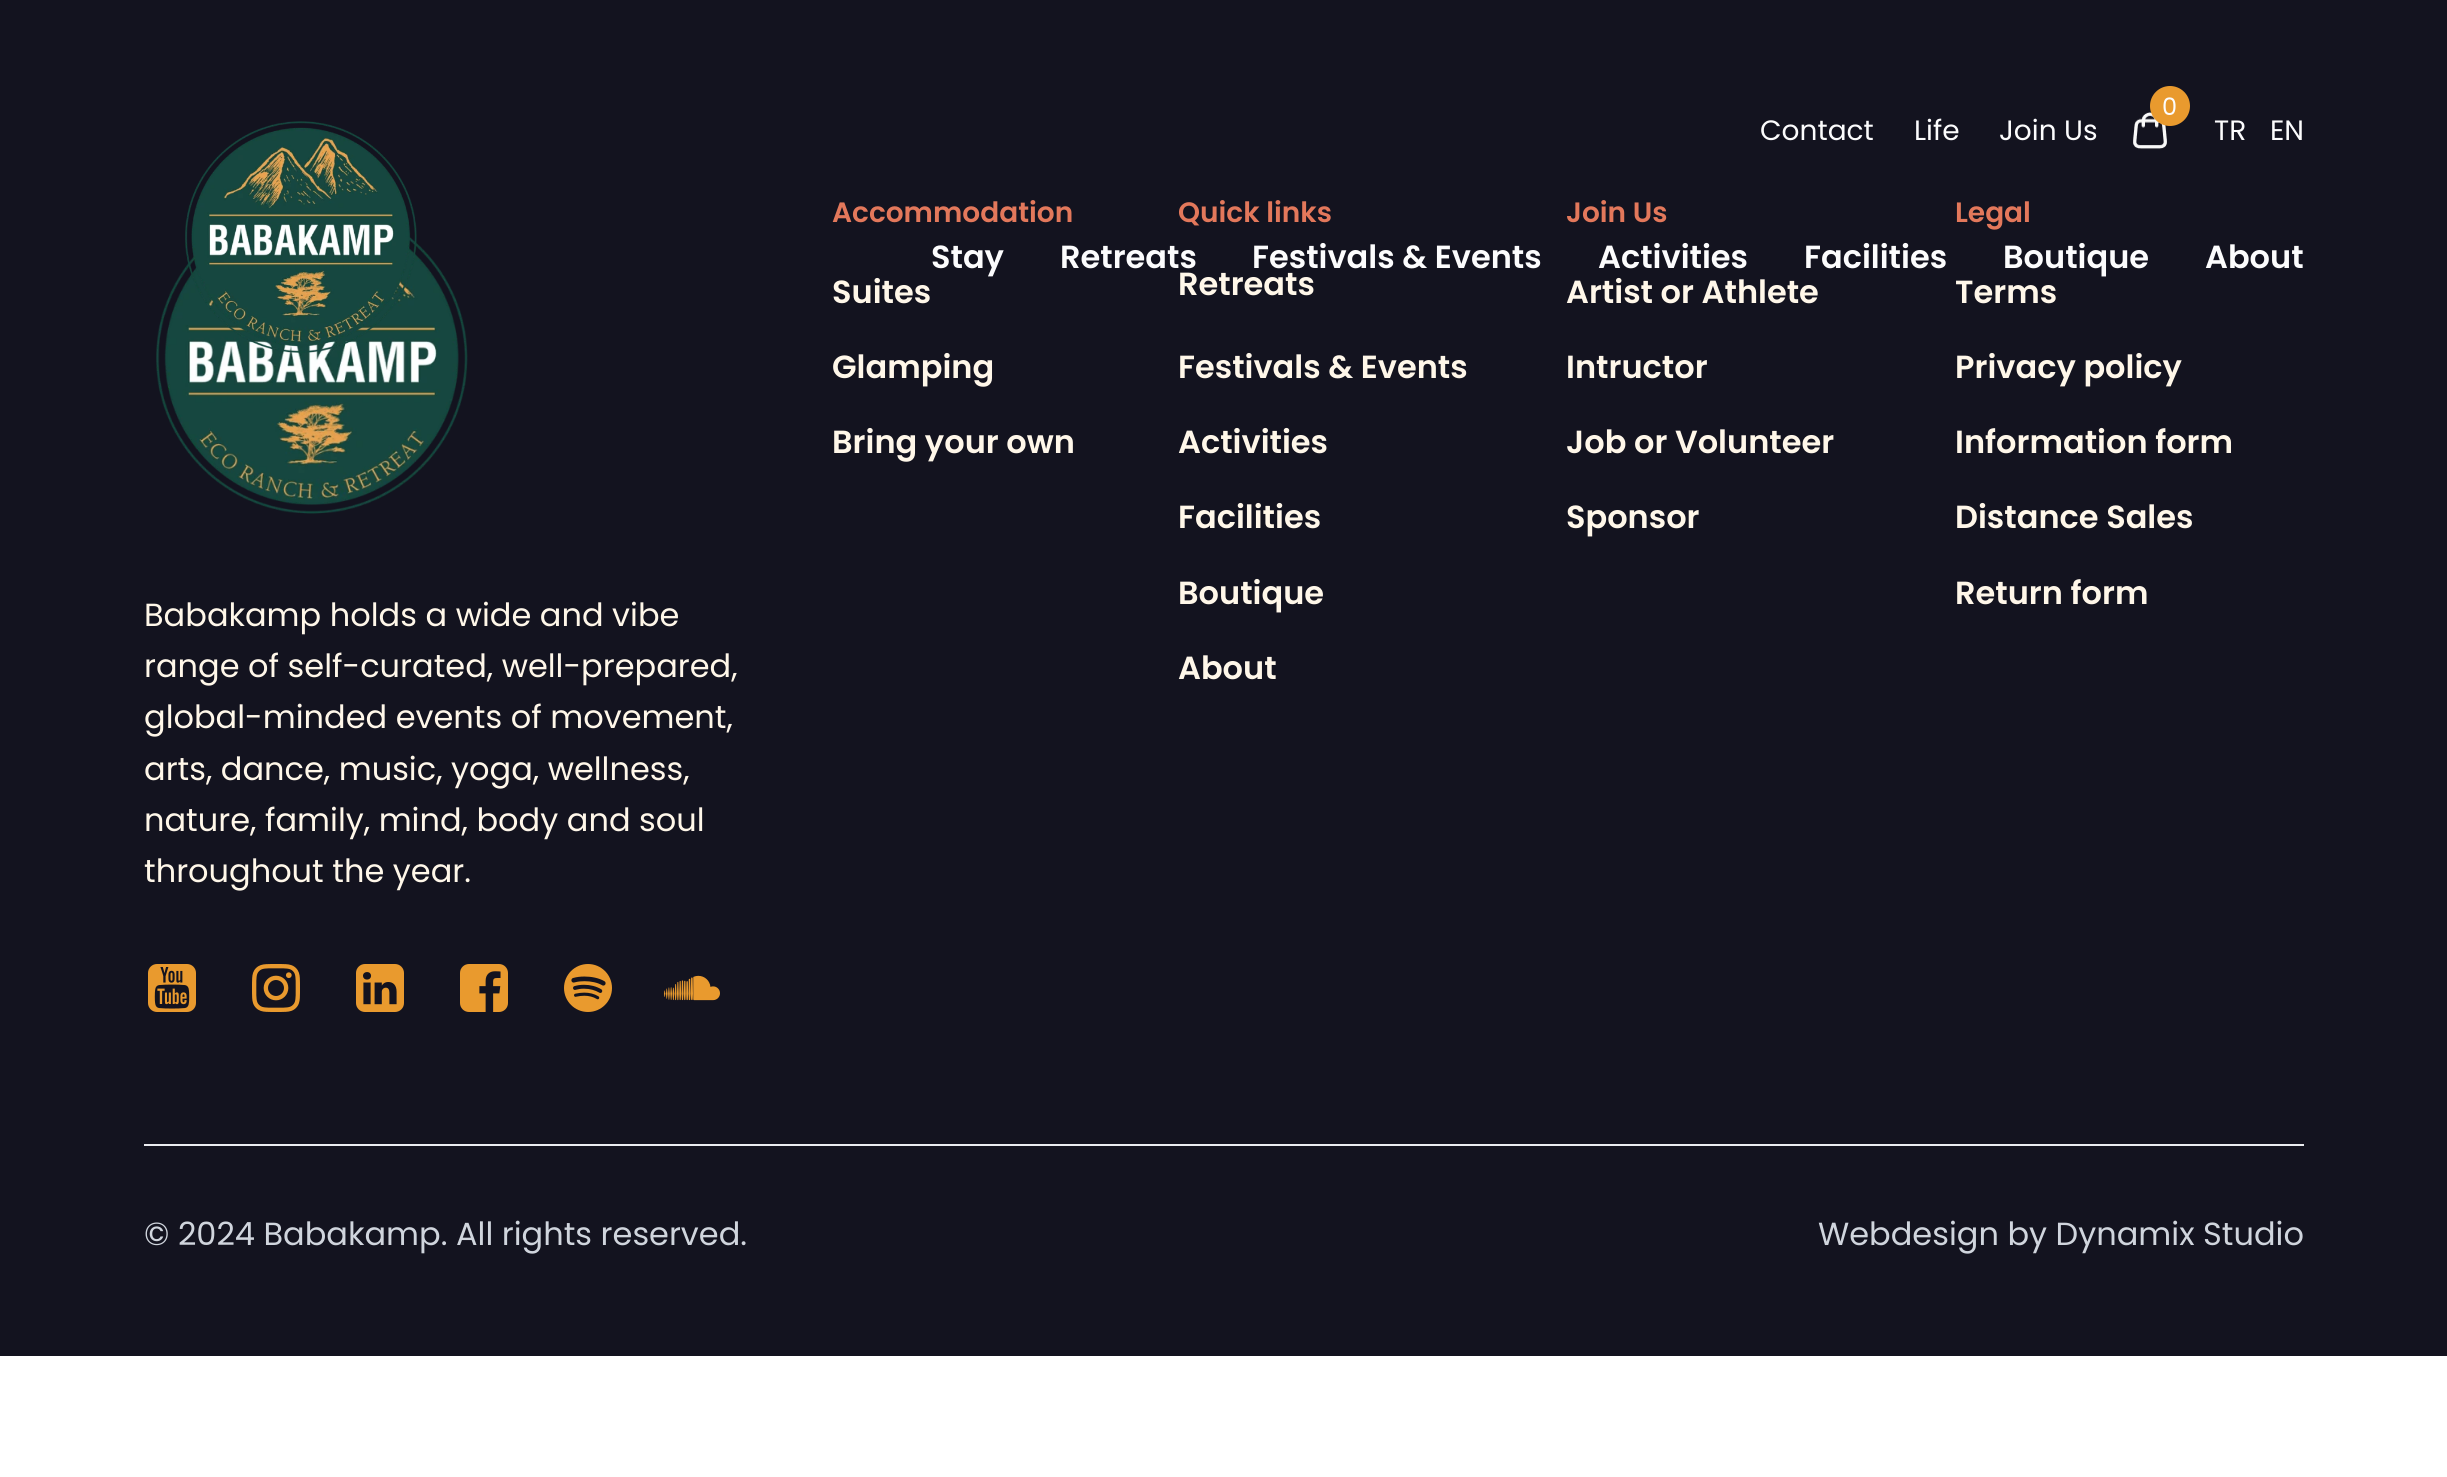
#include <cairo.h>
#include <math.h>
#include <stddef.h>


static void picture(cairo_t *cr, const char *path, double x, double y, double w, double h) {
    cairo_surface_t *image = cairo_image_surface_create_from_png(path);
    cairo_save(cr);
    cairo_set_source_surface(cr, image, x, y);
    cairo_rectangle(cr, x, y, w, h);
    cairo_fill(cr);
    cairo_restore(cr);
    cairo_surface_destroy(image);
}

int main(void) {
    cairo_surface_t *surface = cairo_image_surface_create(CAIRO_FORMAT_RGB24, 2447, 1477);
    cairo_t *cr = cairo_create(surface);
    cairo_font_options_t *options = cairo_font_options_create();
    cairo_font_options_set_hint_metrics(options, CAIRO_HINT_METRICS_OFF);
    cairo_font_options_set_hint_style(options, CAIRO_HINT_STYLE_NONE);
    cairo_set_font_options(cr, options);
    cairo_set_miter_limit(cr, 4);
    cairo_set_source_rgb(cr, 1, 1, 1);
    cairo_paint(cr);
    cairo_set_source_rgb(cr, 0.075, 0.078, 0.122);
    cairo_rectangle(cr, 0, 0, 2447, 1356);
    cairo_fill(cr);
    picture(cr, "img1.png", 2133, 112, 34, 38);
    cairo_set_source_rgb(cr, 0.914, 0.604, 0.18);
    cairo_arc(cr, 2170, 106, 20, 0, 2 * M_PI);
    cairo_fill(cr);
    cairo_select_font_face(cr, "Poppins", CAIRO_FONT_SLANT_NORMAL, CAIRO_FONT_WEIGHT_NORMAL);
    cairo_set_font_size(cr, 24);
    cairo_set_source_rgb(cr, 0.988, 0.988, 0.992);
    cairo_move_to(cr, 2162, 115);
    cairo_show_text(cr, "0");
    cairo_set_font_size(cr, 28);
    cairo_move_to(cr, 1760, 140);
    cairo_show_text(cr, "Contact");
    cairo_move_to(cr, 1914, 140);
    cairo_show_text(cr, "Life");
    cairo_move_to(cr, 1999, 140);
    cairo_show_text(cr, "Join Us");
    cairo_move_to(cr, 2214, 140);
    cairo_show_text(cr, "TR");
    cairo_move_to(cr, 2270, 140);
    cairo_show_text(cr, "EN");
    picture(cr, "img3.png", 156, 236, 312, 278);
    picture(cr, "img2.png", 185, 121, 232, 232);
    cairo_select_font_face(cr, "Poppins SemiBold", CAIRO_FONT_SLANT_NORMAL, CAIRO_FONT_WEIGHT_NORMAL);
    cairo_set_font_size(cr, 32);
    cairo_move_to(cr, 931, 268);
    cairo_show_text(cr, "Stay");
    cairo_move_to(cr, 1060, 268);
    cairo_show_text(cr, "Retreats");
    cairo_move_to(cr, 1252, 268);
    cairo_show_text(cr, "Festivals & Events");
    cairo_move_to(cr, 1598, 268);
    cairo_show_text(cr, "Activities");
    cairo_move_to(cr, 1804, 268);
    cairo_show_text(cr, "Facilities");
    cairo_move_to(cr, 2003, 268);
    cairo_show_text(cr, "Boutique");
    cairo_move_to(cr, 2205, 268);
    cairo_show_text(cr, "About");
    cairo_set_font_size(cr, 28);
    cairo_set_source_rgb(cr, 0.89, 0.471, 0.357);
    cairo_move_to(cr, 832, 222);
    cairo_show_text(cr, "Accommodation");
    cairo_set_font_size(cr, 32);
    cairo_set_source_rgb(cr, 1, 0.965, 0.914);
    cairo_move_to(cr, 832, 303);
    cairo_show_text(cr, "Suites");
    cairo_move_to(cr, 832, 378);
    cairo_show_text(cr, "Glamping");
    cairo_move_to(cr, 832, 453);
    cairo_show_text(cr, "Bring your own");
    cairo_set_font_size(cr, 28);
    cairo_set_source_rgb(cr, 0.89, 0.471, 0.357);
    cairo_move_to(cr, 1178, 222);
    cairo_show_text(cr, "Quick links");
    cairo_set_font_size(cr, 32);
    cairo_set_source_rgb(cr, 1, 0.965, 0.914);
    cairo_move_to(cr, 1178, 295);
    cairo_show_text(cr, "Retreats");
    cairo_move_to(cr, 1178, 378);
    cairo_show_text(cr, "Festivals & Events");
    cairo_move_to(cr, 1178, 453);
    cairo_show_text(cr, "Activities");
    cairo_move_to(cr, 1178, 528);
    cairo_show_text(cr, "Facilities");
    cairo_move_to(cr, 1178, 604);
    cairo_show_text(cr, "Boutique");
    cairo_move_to(cr, 1178, 679);
    cairo_show_text(cr, "About");
    cairo_set_font_size(cr, 28);
    cairo_set_source_rgb(cr, 0.89, 0.471, 0.357);
    cairo_move_to(cr, 1566, 222);
    cairo_show_text(cr, "Join Us");
    cairo_set_font_size(cr, 32);
    cairo_set_source_rgb(cr, 1, 0.965, 0.914);
    cairo_move_to(cr, 1566, 303);
    cairo_show_text(cr, "Artist or Athlete");
    cairo_move_to(cr, 1566, 378);
    cairo_show_text(cr, "Intructor");
    cairo_move_to(cr, 1566, 453);
    cairo_show_text(cr, "Job or Volunteer");
    cairo_move_to(cr, 1566, 528);
    cairo_show_text(cr, "Sponsor");
    cairo_set_font_size(cr, 28);
    cairo_set_source_rgb(cr, 0.89, 0.471, 0.357);
    cairo_move_to(cr, 1955, 222);
    cairo_show_text(cr, "Legal");
    cairo_set_font_size(cr, 32);
    cairo_set_source_rgb(cr, 1, 0.965, 0.914);
    cairo_move_to(cr, 1955, 303);
    cairo_show_text(cr, "Terms");
    cairo_move_to(cr, 1955, 378);
    cairo_show_text(cr, "Privacy policy");
    cairo_move_to(cr, 1955, 453);
    cairo_show_text(cr, "Information form");
    cairo_move_to(cr, 1955, 528);
    cairo_show_text(cr, "Distance Sales");
    cairo_move_to(cr, 1955, 604);
    cairo_show_text(cr, "Return form");
    cairo_select_font_face(cr, "Poppins", CAIRO_FONT_SLANT_NORMAL, CAIRO_FONT_WEIGHT_NORMAL);
    cairo_move_to(cr, 144, 626);
    cairo_show_text(cr, "Babakamp holds a wide and vibe");
    cairo_move_to(cr, 144, 677);
    cairo_show_text(cr, "range of self-curated, well-prepared,");
    cairo_move_to(cr, 144, 728);
    cairo_show_text(cr, "global-minded events of movement,");
    cairo_move_to(cr, 144, 780);
    cairo_show_text(cr, "arts, dance, music, yoga, wellness,");
    cairo_move_to(cr, 144, 831);
    cairo_show_text(cr, "nature, family, mind, body and soul");
    cairo_move_to(cr, 144, 882);
    cairo_show_text(cr, "throughout the year.");
    picture(cr, "img4.png", 148, 964, 48, 48);
    picture(cr, "img5.png", 252, 964, 48, 48);
    picture(cr, "img6.png", 356, 964, 48, 48);
    picture(cr, "img7.png", 460, 964, 48, 48);
    picture(cr, "img8.png", 564, 964, 48, 48);
    picture(cr, "img9.png", 664, 975, 56, 26);
    cairo_set_source_rgb(cr, 0.918, 0.925, 0.941);
    cairo_rectangle(cr, 144, 1144, 2160, 2);
    cairo_fill(cr);
    cairo_set_source_rgb(cr, 0.816, 0.835, 0.867);
    cairo_move_to(cr, 144, 1245);
    cairo_show_text(cr, "© 2024 Babakamp. All rights reserved.");
    cairo_move_to(cr, 1818, 1245);
    cairo_show_text(cr, "Webdesign by Dynamix Studio");
    cairo_surface_write_to_png(surface, "page.png");
    cairo_font_options_destroy(options);
    cairo_destroy(cr);
    cairo_surface_destroy(surface);
    return 0;
}
